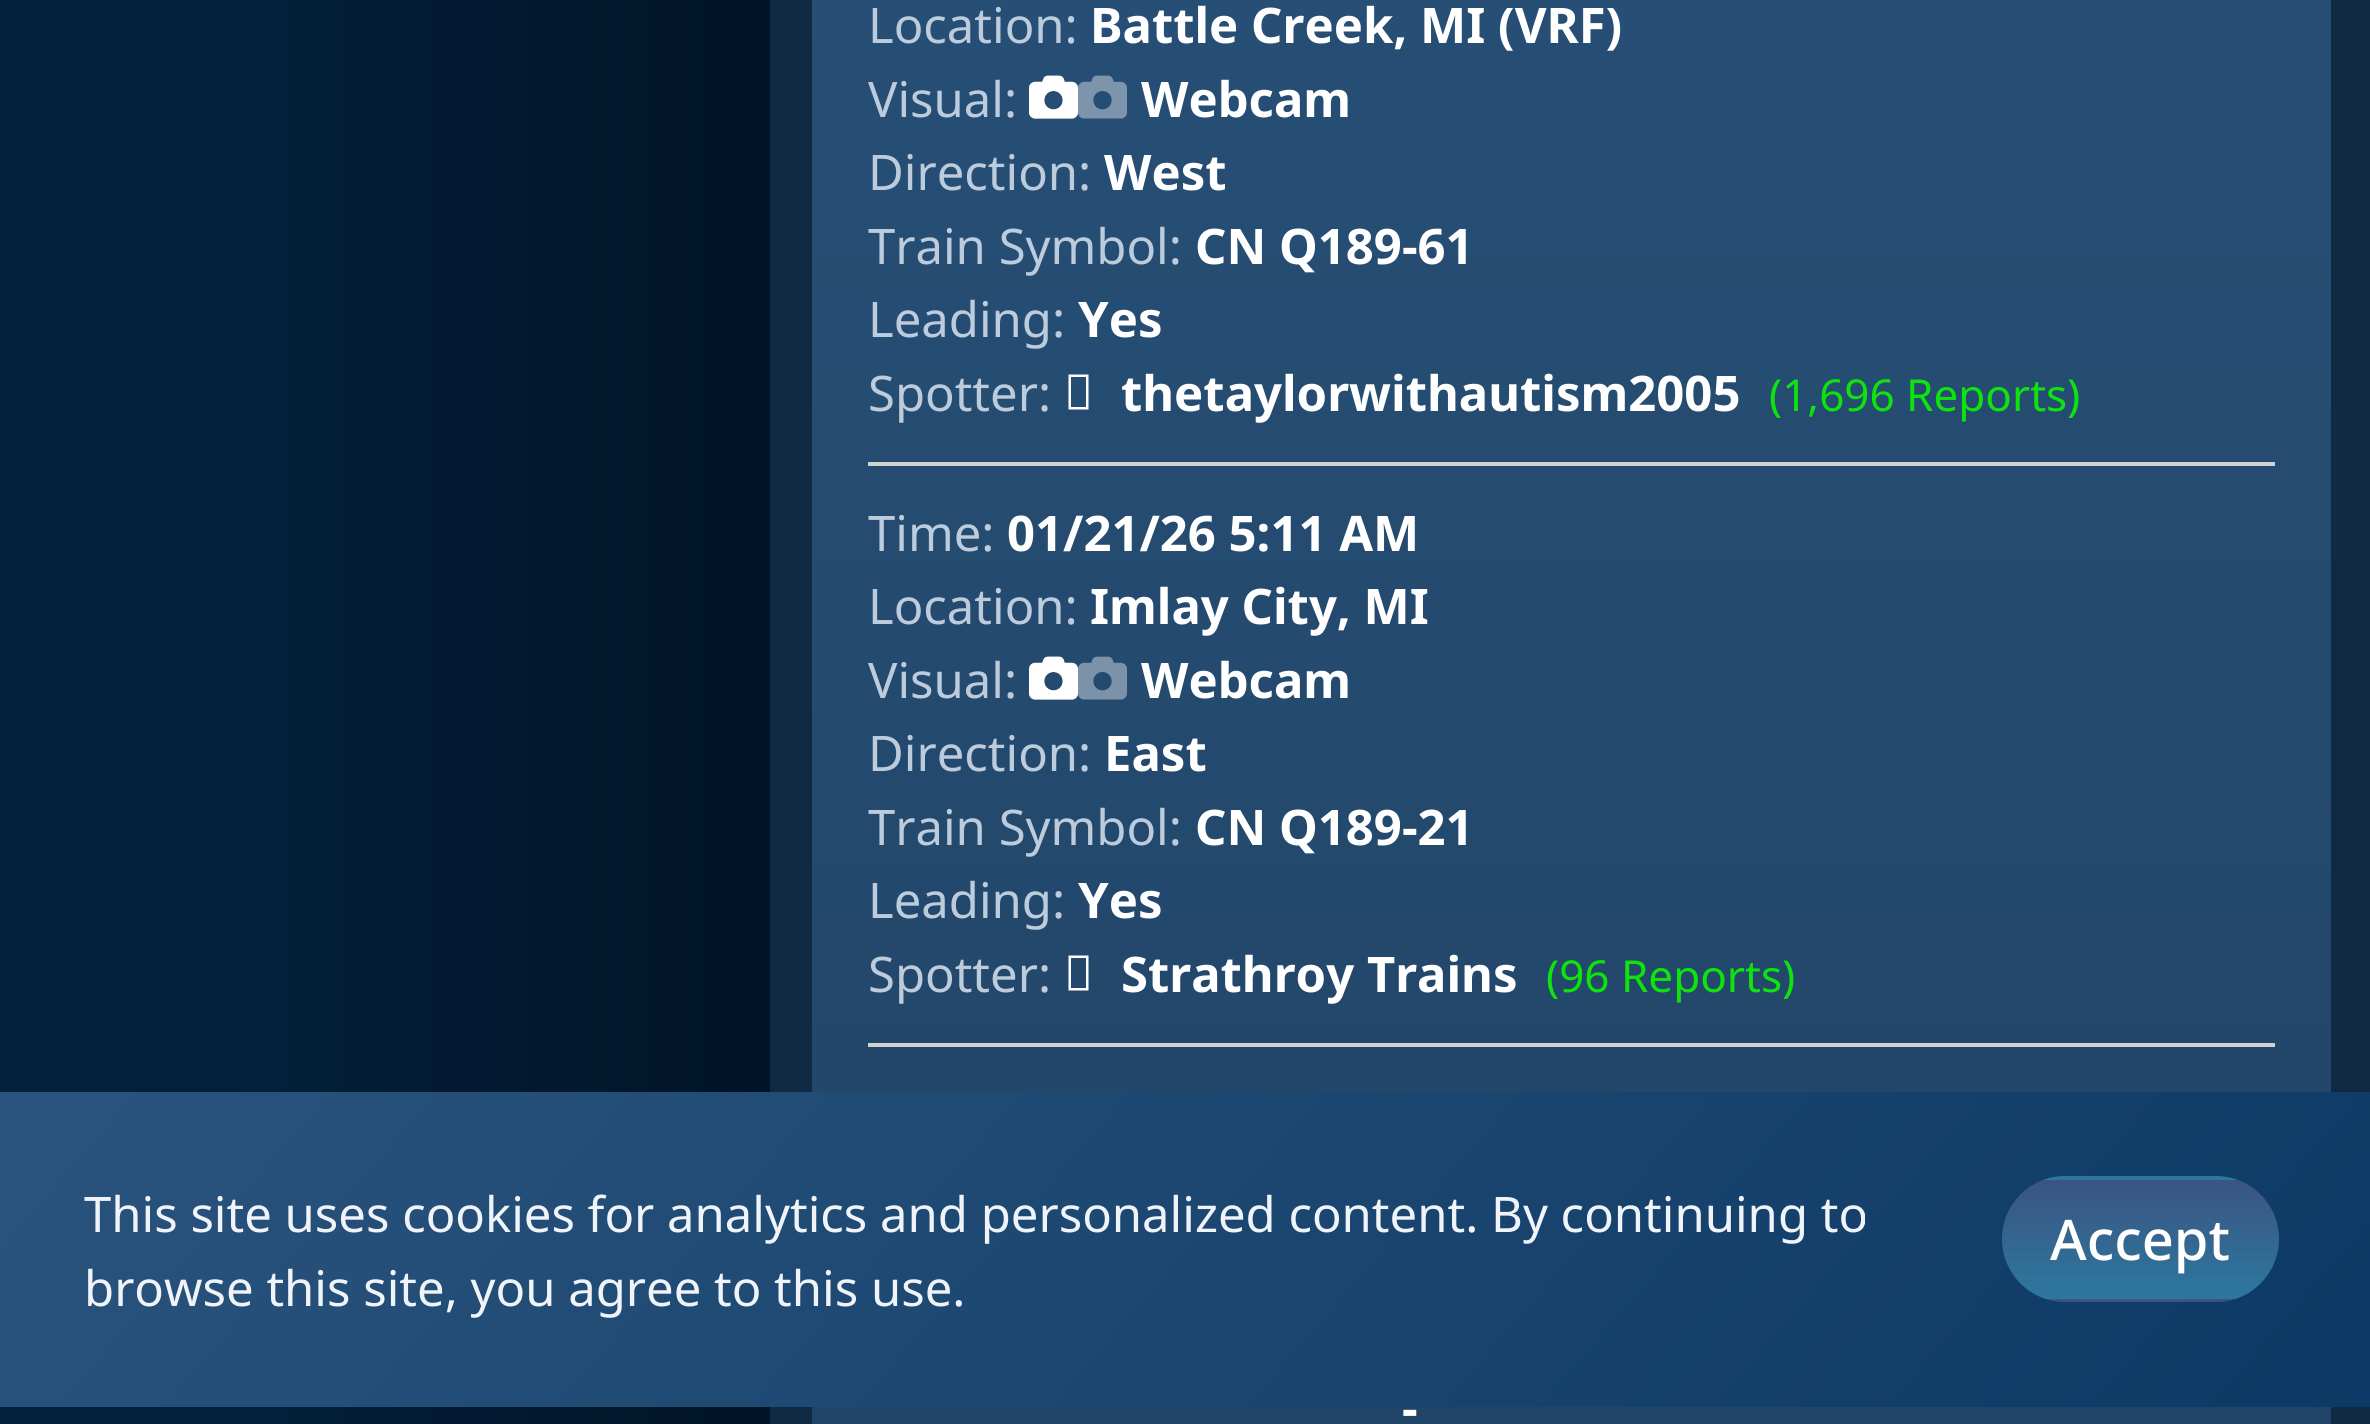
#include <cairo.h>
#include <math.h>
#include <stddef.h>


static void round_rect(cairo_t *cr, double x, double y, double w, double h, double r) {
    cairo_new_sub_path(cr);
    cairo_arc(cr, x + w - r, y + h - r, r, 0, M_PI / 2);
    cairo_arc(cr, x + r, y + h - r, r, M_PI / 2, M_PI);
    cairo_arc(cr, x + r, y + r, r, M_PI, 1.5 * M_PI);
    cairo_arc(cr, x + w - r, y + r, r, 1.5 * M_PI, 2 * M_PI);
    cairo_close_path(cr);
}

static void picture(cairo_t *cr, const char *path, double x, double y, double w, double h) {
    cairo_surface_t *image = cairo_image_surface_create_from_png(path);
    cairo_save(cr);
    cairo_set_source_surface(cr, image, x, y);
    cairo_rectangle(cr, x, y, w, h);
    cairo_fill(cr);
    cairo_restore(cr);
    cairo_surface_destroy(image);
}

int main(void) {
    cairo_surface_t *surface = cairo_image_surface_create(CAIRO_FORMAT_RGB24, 2370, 1424);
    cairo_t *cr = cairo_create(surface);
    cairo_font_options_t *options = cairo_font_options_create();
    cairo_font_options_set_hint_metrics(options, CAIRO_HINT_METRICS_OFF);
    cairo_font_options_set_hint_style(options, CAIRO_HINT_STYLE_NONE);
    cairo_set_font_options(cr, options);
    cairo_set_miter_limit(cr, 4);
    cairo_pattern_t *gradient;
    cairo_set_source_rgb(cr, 0.063, 0.165, 0.263);
    cairo_paint(cr);
    gradient = cairo_pattern_create_linear(0, 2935, 770, 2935);
    cairo_pattern_add_color_stop_rgba(gradient, 0.35, 0.012, 0.122, 0.224, 1);
    cairo_pattern_add_color_stop_rgba(gradient, 1, 0, 0.078, 0.153, 1);
    cairo_set_source(cr, gradient);
    cairo_pattern_destroy(gradient);
    cairo_rectangle(cr, 0, 0, 770, 1424);
    cairo_fill(cr);
    gradient = cairo_pattern_create_linear(1571, -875, 1572, 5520);
    cairo_pattern_add_color_stop_rgba(gradient, 0, 0.165, 0.329, 0.49, 1);
    cairo_pattern_add_color_stop_rgba(gradient, 1, 0.067, 0.165, 0.259, 1);
    cairo_set_source(cr, gradient);
    cairo_pattern_destroy(gradient);
    cairo_rectangle(cr, 812, 0, 1519, 1424);
    cairo_fill(cr);
    cairo_set_source_rgb(cr, 0.82, 0.82, 0.82);
    cairo_rectangle(cr, 868, 462, 1407, 4);
    cairo_fill(cr);
    cairo_select_font_face(cr, "Noto Sans", CAIRO_FONT_SLANT_NORMAL, CAIRO_FONT_WEIGHT_NORMAL);
    cairo_set_font_size(cr, 49);
    cairo_set_source_rgb(cr, 0.737, 0.8, 0.863);
    cairo_move_to(cr, 868, 43);
    cairo_show_text(cr, "Location:");
    cairo_select_font_face(cr, "Noto Sans", CAIRO_FONT_SLANT_NORMAL, CAIRO_FONT_WEIGHT_BOLD);
    cairo_set_source_rgb(cr, 1, 1, 1);
    cairo_move_to(cr, 1090, 43);
    cairo_show_text(cr, "Battle Creek, MI (VRF)");
    cairo_select_font_face(cr, "Noto Sans", CAIRO_FONT_SLANT_NORMAL, CAIRO_FONT_WEIGHT_NORMAL);
    cairo_set_source_rgb(cr, 0.737, 0.8, 0.863);
    cairo_move_to(cr, 868, 117);
    cairo_show_text(cr, "Visual:");
    picture(cr, "img1.png", 1029, 75, 49, 44);
    picture(cr, "img2.png", 1029, 75, 98, 44);
    cairo_select_font_face(cr, "Noto Sans", CAIRO_FONT_SLANT_NORMAL, CAIRO_FONT_WEIGHT_BOLD);
    cairo_set_source_rgb(cr, 1, 1, 1);
    cairo_move_to(cr, 1141, 117);
    cairo_show_text(cr, "Webcam");
    cairo_select_font_face(cr, "Noto Sans", CAIRO_FONT_SLANT_NORMAL, CAIRO_FONT_WEIGHT_NORMAL);
    cairo_set_source_rgb(cr, 0.737, 0.8, 0.863);
    cairo_move_to(cr, 868, 190);
    cairo_show_text(cr, "Direction:");
    cairo_select_font_face(cr, "Noto Sans", CAIRO_FONT_SLANT_NORMAL, CAIRO_FONT_WEIGHT_BOLD);
    cairo_set_source_rgb(cr, 1, 1, 1);
    cairo_move_to(cr, 1104, 190);
    cairo_show_text(cr, "West");
    cairo_select_font_face(cr, "Noto Sans", CAIRO_FONT_SLANT_NORMAL, CAIRO_FONT_WEIGHT_NORMAL);
    cairo_set_source_rgb(cr, 0.737, 0.8, 0.863);
    cairo_move_to(cr, 868, 264);
    cairo_show_text(cr, "Train Symbol:");
    cairo_select_font_face(cr, "Noto Sans", CAIRO_FONT_SLANT_NORMAL, CAIRO_FONT_WEIGHT_BOLD);
    cairo_set_source_rgb(cr, 1, 1, 1);
    cairo_move_to(cr, 1195, 264);
    cairo_show_text(cr, "CN Q189-61");
    cairo_select_font_face(cr, "Noto Sans", CAIRO_FONT_SLANT_NORMAL, CAIRO_FONT_WEIGHT_NORMAL);
    cairo_set_source_rgb(cr, 0.737, 0.8, 0.863);
    cairo_move_to(cr, 868, 337);
    cairo_show_text(cr, "Leading:");
    cairo_select_font_face(cr, "Noto Sans", CAIRO_FONT_SLANT_NORMAL, CAIRO_FONT_WEIGHT_BOLD);
    cairo_set_source_rgb(cr, 1, 1, 1);
    cairo_move_to(cr, 1078, 337);
    cairo_show_text(cr, "Yes");
    cairo_select_font_face(cr, "Noto Sans", CAIRO_FONT_SLANT_NORMAL, CAIRO_FONT_WEIGHT_NORMAL);
    cairo_set_source_rgb(cr, 0.737, 0.8, 0.863);
    cairo_move_to(cr, 868, 411);
    cairo_show_text(cr, "Spotter:");
    cairo_set_source_rgb(cr, 1, 1, 1);
    cairo_new_path(cr);
    cairo_move_to(cr, 1068.5, 409.5);
    cairo_line_to(cr, 1068.5, 374.5);
    cairo_line_to(cr, 1088.5, 374.5);
    cairo_line_to(cr, 1088.5, 409.5);
    cairo_close_path(cr);
    cairo_move_to(cr, 1071, 407);
    cairo_line_to(cr, 1086, 407);
    cairo_line_to(cr, 1086, 377);
    cairo_line_to(cr, 1071, 377);
    cairo_close_path(cr);
    cairo_fill(cr);
    cairo_select_font_face(cr, "Noto Sans", CAIRO_FONT_SLANT_NORMAL, CAIRO_FONT_WEIGHT_BOLD);
    cairo_move_to(cr, 1121, 411);
    cairo_show_text(cr, "thetaylorwithautism2005");
    cairo_select_font_face(cr, "Noto Sans", CAIRO_FONT_SLANT_NORMAL, CAIRO_FONT_WEIGHT_NORMAL);
    cairo_set_font_size(cr, 44);
    cairo_set_source_rgb(cr, 0.055, 0.89, 0.055);
    cairo_move_to(cr, 1769, 411);
    cairo_show_text(cr, "(1,696 Reports)");
    cairo_set_source_rgb(cr, 0.82, 0.82, 0.82);
    cairo_rectangle(cr, 868, 1043, 1407, 4);
    cairo_fill(cr);
    cairo_set_font_size(cr, 49);
    cairo_set_source_rgb(cr, 0.737, 0.8, 0.863);
    cairo_move_to(cr, 868, 551);
    cairo_show_text(cr, "Time:");
    cairo_select_font_face(cr, "Noto Sans", CAIRO_FONT_SLANT_NORMAL, CAIRO_FONT_WEIGHT_BOLD);
    cairo_set_source_rgb(cr, 1, 1, 1);
    cairo_move_to(cr, 1007, 551);
    cairo_show_text(cr, "01/21/26 5:11 AM");
    cairo_select_font_face(cr, "Noto Sans", CAIRO_FONT_SLANT_NORMAL, CAIRO_FONT_WEIGHT_NORMAL);
    cairo_set_source_rgb(cr, 0.737, 0.8, 0.863);
    cairo_move_to(cr, 868, 624);
    cairo_show_text(cr, "Location:");
    cairo_select_font_face(cr, "Noto Sans", CAIRO_FONT_SLANT_NORMAL, CAIRO_FONT_WEIGHT_BOLD);
    cairo_set_source_rgb(cr, 1, 1, 1);
    cairo_move_to(cr, 1090, 624);
    cairo_show_text(cr, "Imlay City, MI");
    cairo_select_font_face(cr, "Noto Sans", CAIRO_FONT_SLANT_NORMAL, CAIRO_FONT_WEIGHT_NORMAL);
    cairo_set_source_rgb(cr, 0.737, 0.8, 0.863);
    cairo_move_to(cr, 868, 698);
    cairo_show_text(cr, "Visual:");
    picture(cr, "img3.png", 1029, 656, 49, 44);
    picture(cr, "img4.png", 1029, 656, 98, 44);
    cairo_select_font_face(cr, "Noto Sans", CAIRO_FONT_SLANT_NORMAL, CAIRO_FONT_WEIGHT_BOLD);
    cairo_set_source_rgb(cr, 1, 1, 1);
    cairo_move_to(cr, 1141, 698);
    cairo_show_text(cr, "Webcam");
    cairo_select_font_face(cr, "Noto Sans", CAIRO_FONT_SLANT_NORMAL, CAIRO_FONT_WEIGHT_NORMAL);
    cairo_set_source_rgb(cr, 0.737, 0.8, 0.863);
    cairo_move_to(cr, 868, 771);
    cairo_show_text(cr, "Direction:");
    cairo_select_font_face(cr, "Noto Sans", CAIRO_FONT_SLANT_NORMAL, CAIRO_FONT_WEIGHT_BOLD);
    cairo_set_source_rgb(cr, 1, 1, 1);
    cairo_move_to(cr, 1104, 771);
    cairo_show_text(cr, "East");
    cairo_select_font_face(cr, "Noto Sans", CAIRO_FONT_SLANT_NORMAL, CAIRO_FONT_WEIGHT_NORMAL);
    cairo_set_source_rgb(cr, 0.737, 0.8, 0.863);
    cairo_move_to(cr, 868, 845);
    cairo_show_text(cr, "Train Symbol:");
    cairo_select_font_face(cr, "Noto Sans", CAIRO_FONT_SLANT_NORMAL, CAIRO_FONT_WEIGHT_BOLD);
    cairo_set_source_rgb(cr, 1, 1, 1);
    cairo_move_to(cr, 1195, 845);
    cairo_show_text(cr, "CN Q189-21");
    cairo_select_font_face(cr, "Noto Sans", CAIRO_FONT_SLANT_NORMAL, CAIRO_FONT_WEIGHT_NORMAL);
    cairo_set_source_rgb(cr, 0.737, 0.8, 0.863);
    cairo_move_to(cr, 868, 918);
    cairo_show_text(cr, "Leading:");
    cairo_select_font_face(cr, "Noto Sans", CAIRO_FONT_SLANT_NORMAL, CAIRO_FONT_WEIGHT_BOLD);
    cairo_set_source_rgb(cr, 1, 1, 1);
    cairo_move_to(cr, 1078, 918);
    cairo_show_text(cr, "Yes");
    cairo_select_font_face(cr, "Noto Sans", CAIRO_FONT_SLANT_NORMAL, CAIRO_FONT_WEIGHT_NORMAL);
    cairo_set_source_rgb(cr, 0.737, 0.8, 0.863);
    cairo_move_to(cr, 868, 992);
    cairo_show_text(cr, "Spotter:");
    cairo_set_source_rgb(cr, 1, 1, 1);
    cairo_new_path(cr);
    cairo_move_to(cr, 1068.5, 990.5);
    cairo_line_to(cr, 1068.5, 955.5);
    cairo_line_to(cr, 1088.5, 955.5);
    cairo_line_to(cr, 1088.5, 990.5);
    cairo_close_path(cr);
    cairo_move_to(cr, 1071, 988);
    cairo_line_to(cr, 1086, 988);
    cairo_line_to(cr, 1086, 958);
    cairo_line_to(cr, 1071, 958);
    cairo_close_path(cr);
    cairo_fill(cr);
    cairo_select_font_face(cr, "Noto Sans", CAIRO_FONT_SLANT_NORMAL, CAIRO_FONT_WEIGHT_BOLD);
    cairo_move_to(cr, 1121, 992);
    cairo_show_text(cr, "Strathroy Trains");
    cairo_select_font_face(cr, "Noto Sans", CAIRO_FONT_SLANT_NORMAL, CAIRO_FONT_WEIGHT_NORMAL);
    cairo_set_font_size(cr, 44);
    cairo_set_source_rgb(cr, 0.055, 0.89, 0.055);
    cairo_move_to(cr, 1546, 992);
    cairo_show_text(cr, "(96 Reports)");
    cairo_select_font_face(cr, "Noto Sans", CAIRO_FONT_SLANT_NORMAL, CAIRO_FONT_WEIGHT_BOLD);
    cairo_set_font_size(cr, 49);
    cairo_set_source_rgb(cr, 1, 1, 1);
    cairo_move_to(cr, 1402, 1426);
    cairo_show_text(cr, "-");
    gradient = cairo_pattern_create_linear(433, 594, 1940, 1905);
    cairo_pattern_add_color_stop_rgba(gradient, 0, 0.165, 0.329, 0.49, 1);
    cairo_pattern_add_color_stop_rgba(gradient, 1, 0.047, 0.224, 0.396, 1);
    cairo_set_source(cr, gradient);
    cairo_pattern_destroy(gradient);
    cairo_rectangle(cr, 0, 1092, 2370, 315);
    cairo_fill(cr);
    cairo_select_font_face(cr, "Noto Sans", CAIRO_FONT_SLANT_NORMAL, CAIRO_FONT_WEIGHT_NORMAL);
    cairo_set_source_rgb(cr, 0.941, 0.957, 0.973);
    cairo_move_to(cr, 84, 1232);
    cairo_show_text(cr, "This site uses cookies for analytics and personalized content. By continuing to");
    cairo_move_to(cr, 84, 1306);
    cairo_show_text(cr, "browse this site, you agree to this use.");
    cairo_save(cr);
    round_rect(cr, 2002, 1176, 277, 126, 63);
    cairo_clip(cr);
    gradient = cairo_pattern_create_linear(2140, 1180, 2140, 1061);
    cairo_pattern_add_color_stop_rgba(gradient, 0, 0.173, 0.471, 0.624, 1);
    cairo_pattern_add_color_stop_rgba(gradient, 1, 0.231, 0.329, 0.506, 1);
    cairo_set_source(cr, gradient);
    cairo_pattern_destroy(gradient);
    cairo_rectangle(cr, 2043, 1176, 195, 4);
    cairo_fill(cr);
    gradient = cairo_pattern_create_linear(2140, 1299, 2140, 1180);
    cairo_pattern_add_color_stop_rgba(gradient, 0, 0.173, 0.471, 0.624, 1);
    cairo_pattern_add_color_stop_rgba(gradient, 1, 0.231, 0.329, 0.506, 1);
    cairo_set_source(cr, gradient);
    cairo_pattern_destroy(gradient);
    cairo_rectangle(cr, 2002, 1180, 277, 119);
    cairo_fill(cr);
    gradient = cairo_pattern_create_linear(2140, 1418, 2140, 1299);
    cairo_pattern_add_color_stop_rgba(gradient, 0, 0.173, 0.471, 0.624, 1);
    cairo_pattern_add_color_stop_rgba(gradient, 1, 0.231, 0.329, 0.506, 1);
    cairo_set_source(cr, gradient);
    cairo_pattern_destroy(gradient);
    cairo_rectangle(cr, 2046, 1299, 189, 3);
    cairo_fill(cr);
    cairo_restore(cr);
    cairo_select_font_face(cr, "Noto Sans Medium", CAIRO_FONT_SLANT_NORMAL, CAIRO_FONT_WEIGHT_NORMAL);
    cairo_set_font_size(cr, 56);
    cairo_set_source_rgb(cr, 1, 1, 1);
    cairo_move_to(cr, 2050, 1260);
    cairo_show_text(cr, "Accept");
    cairo_surface_write_to_png(surface, "page.png");
    cairo_font_options_destroy(options);
    cairo_destroy(cr);
    cairo_surface_destroy(surface);
    return 0;
}
